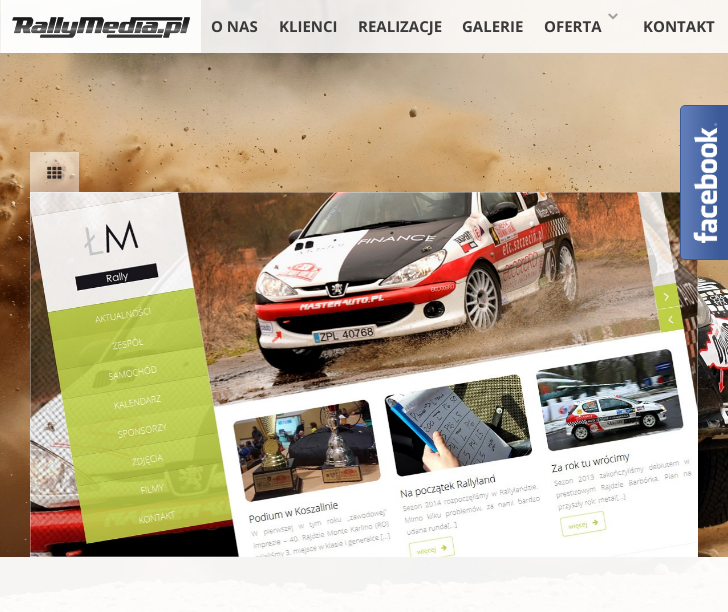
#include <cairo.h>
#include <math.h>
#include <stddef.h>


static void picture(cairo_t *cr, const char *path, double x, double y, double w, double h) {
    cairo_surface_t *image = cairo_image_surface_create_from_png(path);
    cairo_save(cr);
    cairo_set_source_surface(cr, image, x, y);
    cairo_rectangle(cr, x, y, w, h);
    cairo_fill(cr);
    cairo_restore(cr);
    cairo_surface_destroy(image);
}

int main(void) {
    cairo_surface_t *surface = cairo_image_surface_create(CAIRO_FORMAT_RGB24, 728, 612);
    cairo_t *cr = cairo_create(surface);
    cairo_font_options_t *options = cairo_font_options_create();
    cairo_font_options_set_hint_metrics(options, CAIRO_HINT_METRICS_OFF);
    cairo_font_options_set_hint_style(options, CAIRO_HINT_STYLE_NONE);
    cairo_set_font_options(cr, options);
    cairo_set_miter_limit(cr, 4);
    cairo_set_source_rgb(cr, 1, 1, 1);
    cairo_paint(cr);
    picture(cr, "img1.png", 0, 0, 728, 612);
    picture(cr, "img2.png", 3, 0, 543, 92);
    cairo_set_source_rgba(cr, 1, 1, 1, 0.5);
    cairo_rectangle(cr, 30, 152, 49, 40);
    cairo_fill(cr);
    picture(cr, "img3.png", 47, 166, 15, 13);
    picture(cr, "img4.png", 30, 192, 668, 365);
    cairo_set_source_rgba(cr, 1, 1, 1, 0.95);
    cairo_rectangle(cr, 0, 557, 728, 55);
    cairo_fill(cr);
    cairo_set_source_rgba(cr, 1, 1, 1, 0.85);
    cairo_rectangle(cr, 0, 0, 728, 53);
    cairo_fill(cr);
    cairo_rectangle(cr, 1, 0, 200, 53);
    cairo_fill(cr);
    picture(cr, "img5.png", 12, 17, 178, 21);
    cairo_select_font_face(cr, "Open Sans", CAIRO_FONT_SLANT_NORMAL, CAIRO_FONT_WEIGHT_BOLD);
    cairo_set_font_size(cr, 15);
    cairo_set_source_rgb(cr, 0.231, 0.227, 0.227);
    cairo_move_to(cr, 211, 32);
    cairo_show_text(cr, "O NAS");
    cairo_move_to(cr, 279, 32);
    cairo_show_text(cr, "KLIENCI");
    cairo_move_to(cr, 358, 32);
    cairo_show_text(cr, "REALIZACJE");
    cairo_move_to(cr, 462, 32);
    cairo_show_text(cr, "GALERIE");
    picture(cr, "img6.png", 608, 13, 10, 7);
    cairo_move_to(cr, 544, 32);
    cairo_show_text(cr, "OFERTA");
    cairo_move_to(cr, 643, 32);
    cairo_show_text(cr, "KONTAKT");
    picture(cr, "img7.png", 680, 105, 48, 155);
    cairo_surface_write_to_png(surface, "page.png");
    cairo_font_options_destroy(options);
    cairo_destroy(cr);
    cairo_surface_destroy(surface);
    return 0;
}
